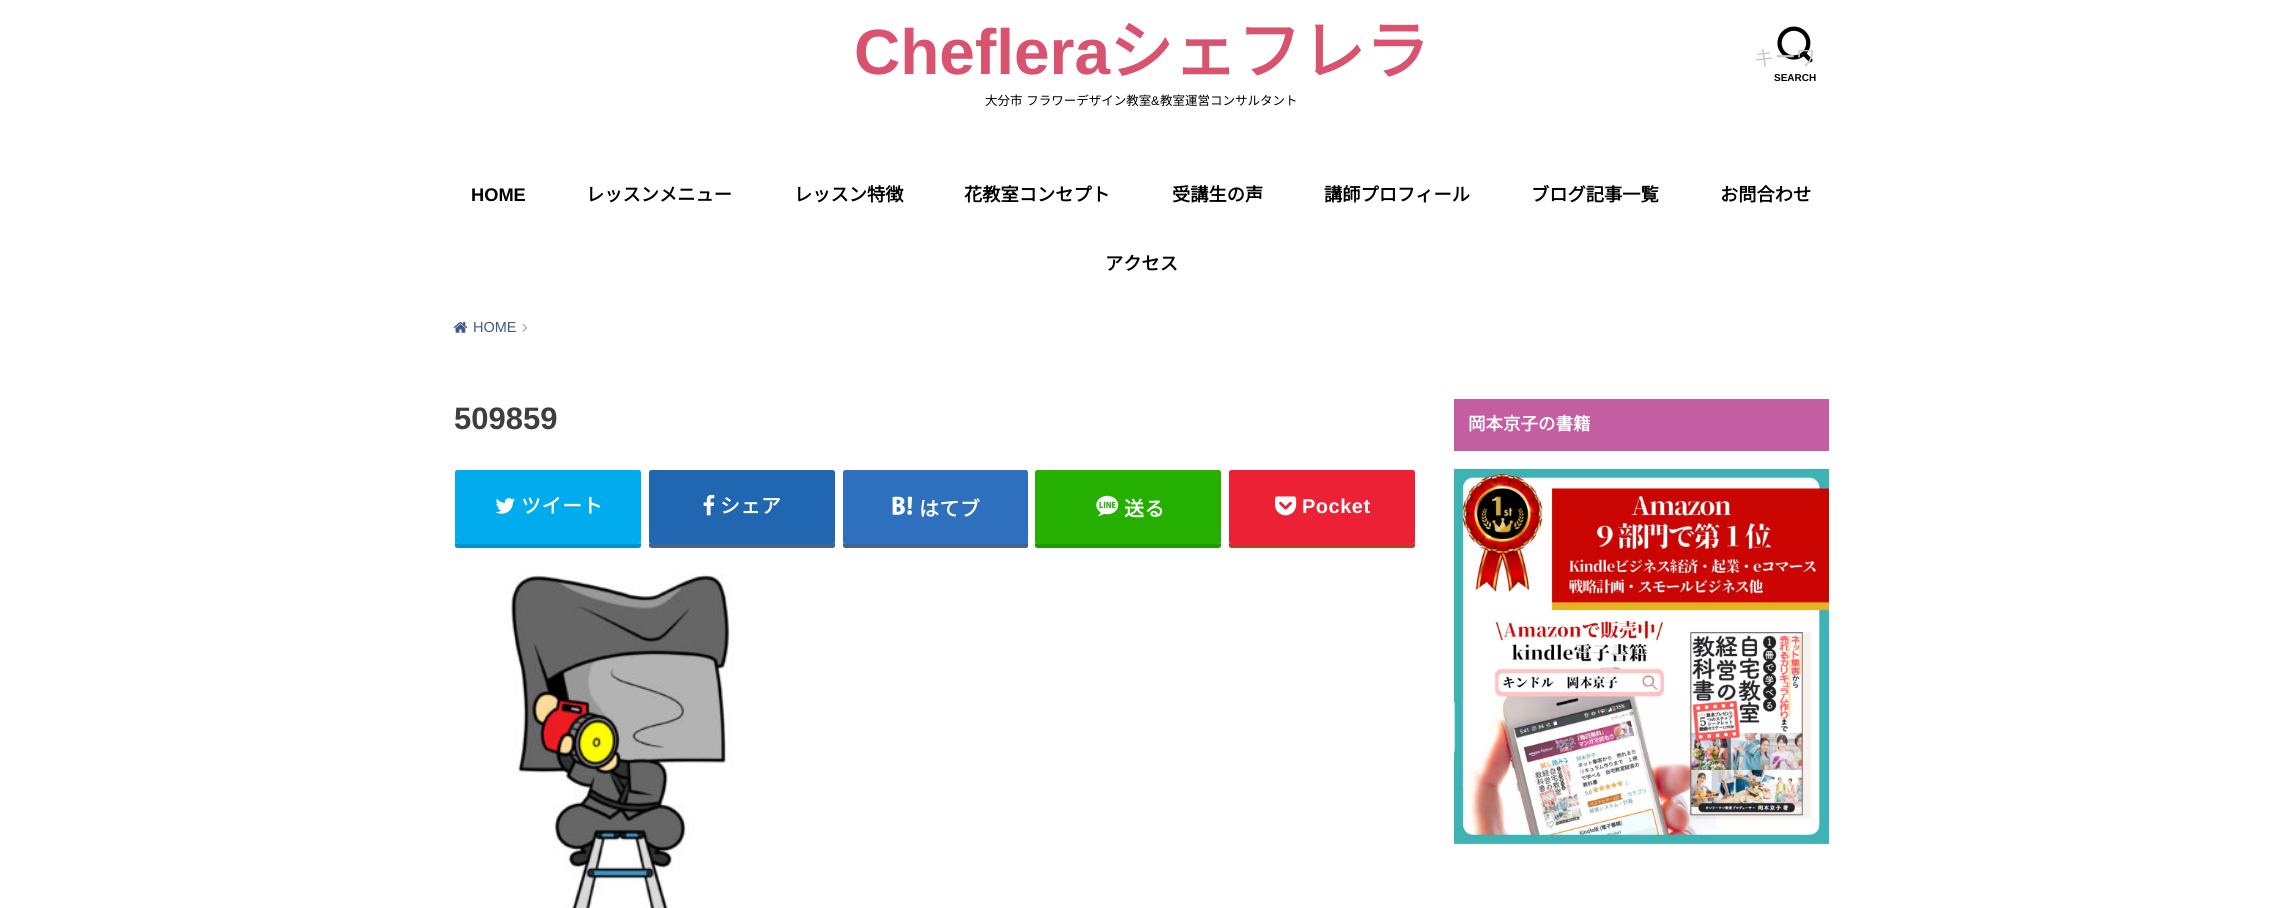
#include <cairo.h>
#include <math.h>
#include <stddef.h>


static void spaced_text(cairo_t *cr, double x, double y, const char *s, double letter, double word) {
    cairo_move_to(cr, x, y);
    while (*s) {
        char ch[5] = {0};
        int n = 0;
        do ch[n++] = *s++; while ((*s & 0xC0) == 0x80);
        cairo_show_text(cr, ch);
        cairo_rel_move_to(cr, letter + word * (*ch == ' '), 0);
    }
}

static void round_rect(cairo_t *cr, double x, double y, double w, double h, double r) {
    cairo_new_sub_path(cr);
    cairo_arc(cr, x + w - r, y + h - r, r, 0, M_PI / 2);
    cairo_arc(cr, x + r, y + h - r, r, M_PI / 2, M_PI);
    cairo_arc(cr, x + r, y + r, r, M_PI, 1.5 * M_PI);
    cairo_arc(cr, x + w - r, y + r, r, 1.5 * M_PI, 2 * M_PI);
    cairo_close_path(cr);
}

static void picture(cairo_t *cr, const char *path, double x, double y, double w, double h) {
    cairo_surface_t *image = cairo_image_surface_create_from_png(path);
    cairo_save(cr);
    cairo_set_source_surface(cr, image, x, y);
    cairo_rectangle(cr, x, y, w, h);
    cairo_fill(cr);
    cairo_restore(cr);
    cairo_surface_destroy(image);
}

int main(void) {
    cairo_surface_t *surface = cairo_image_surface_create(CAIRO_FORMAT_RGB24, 2282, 908);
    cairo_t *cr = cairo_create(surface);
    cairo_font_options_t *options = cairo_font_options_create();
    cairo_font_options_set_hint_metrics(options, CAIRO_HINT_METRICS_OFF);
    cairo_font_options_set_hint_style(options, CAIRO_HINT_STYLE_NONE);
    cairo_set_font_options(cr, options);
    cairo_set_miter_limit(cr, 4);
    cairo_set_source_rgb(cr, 1, 1, 1);
    cairo_paint(cr);
    cairo_select_font_face(cr, "Liberation Sans", CAIRO_FONT_SLANT_NORMAL, CAIRO_FONT_WEIGHT_BOLD);
    cairo_set_font_size(cr, 64);
    cairo_set_source_rgb(cr, 0.855, 0.325, 0.431);
    cairo_move_to(cr, 854, 74);
    cairo_show_text(cr, "Cheflera");
    cairo_select_font_face(cr, "Noto Sans JP", CAIRO_FONT_SLANT_NORMAL, CAIRO_FONT_WEIGHT_BOLD);
    cairo_move_to(cr, 1109, 74);
    cairo_show_text(cr, "シェフレラ");
    cairo_select_font_face(cr, "Noto Sans JP Thin", CAIRO_FONT_SLANT_NORMAL, CAIRO_FONT_WEIGHT_NORMAL);
    cairo_set_font_size(cr, 12.5);
    cairo_set_source_rgb(cr, 0, 0, 0);
    spaced_text(cr, 985, 105, "大分市 フラワーデザイン教室", 0, 1);
    cairo_select_font_face(cr, "Liberation Sans", CAIRO_FONT_SLANT_NORMAL, CAIRO_FONT_WEIGHT_NORMAL);
    cairo_move_to(cr, 1151, 105);
    cairo_show_text(cr, "&");
    cairo_select_font_face(cr, "Noto Sans JP Thin", CAIRO_FONT_SLANT_NORMAL, CAIRO_FONT_WEIGHT_NORMAL);
    cairo_move_to(cr, 1160, 105);
    cairo_show_text(cr, "教室運営コンサルタント");
    picture(cr, "img1.png", 1777, 26, 36, 37);
    cairo_select_font_face(cr, "WenQuanYi Zen Hei Medium", CAIRO_FONT_SLANT_NORMAL, CAIRO_FONT_WEIGHT_NORMAL);
    cairo_set_font_size(cr, 20.5);
    cairo_set_source_rgb(cr, 0.784, 0.784, 0.784);
    cairo_move_to(cr, 1754, 64);
    cairo_show_text(cr, "キーワ");
    cairo_select_font_face(cr, "Liberation Sans", CAIRO_FONT_SLANT_NORMAL, CAIRO_FONT_WEIGHT_BOLD);
    cairo_set_font_size(cr, 10);
    cairo_set_source_rgb(cr, 0, 0, 0);
    cairo_move_to(cr, 1774, 81);
    cairo_show_text(cr, "SEARCH");
    cairo_set_font_size(cr, 18.25);
    cairo_move_to(cr, 471, 201);
    cairo_show_text(cr, "HOME");
    cairo_select_font_face(cr, "Noto Sans JP", CAIRO_FONT_SLANT_NORMAL, CAIRO_FONT_WEIGHT_BOLD);
    cairo_move_to(cr, 586, 201);
    cairo_show_text(cr, "レッスンメニュー");
    cairo_move_to(cr, 794, 201);
    cairo_show_text(cr, "レッスン特徴");
    cairo_move_to(cr, 964, 201);
    cairo_show_text(cr, "花教室コンセプト");
    cairo_move_to(cr, 1172, 201);
    cairo_show_text(cr, "受講生の声");
    cairo_move_to(cr, 1324, 201);
    cairo_show_text(cr, "講師プロフィール");
    cairo_move_to(cr, 1531, 201);
    cairo_show_text(cr, "ブログ記事一覧");
    cairo_move_to(cr, 1720, 201);
    cairo_show_text(cr, "お問合わせ");
    cairo_move_to(cr, 1105, 270);
    cairo_show_text(cr, "アクセス");
    picture(cr, "img2.png", 453, 321, 15, 12);
    cairo_select_font_face(cr, "Liberation Sans", CAIRO_FONT_SLANT_NORMAL, CAIRO_FONT_WEIGHT_NORMAL);
    cairo_set_font_size(cr, 14.5);
    cairo_set_source_rgb(cr, 0.243, 0.345, 0.529);
    cairo_move_to(cr, 473, 332);
    cairo_show_text(cr, "HOME");
    picture(cr, "img3.png", 522, 323, 6, 9);
    cairo_select_font_face(cr, "Liberation Sans", CAIRO_FONT_SLANT_NORMAL, CAIRO_FONT_WEIGHT_BOLD);
    cairo_set_font_size(cr, 31);
    cairo_set_source_rgb(cr, 0.243, 0.243, 0.243);
    cairo_move_to(cr, 454, 429);
    cairo_show_text(cr, "509859");
    cairo_set_source_rgb(cr, 0, 0.573, 0.792);
    cairo_new_path(cr);
    cairo_move_to(cr, 455, 541);
    cairo_line_to(cr, 455, 546);
    cairo_curve_to(cr, 455, 547, 456, 548, 458, 548);
    cairo_line_to(cr, 638, 548);
    cairo_curve_to(cr, 640, 548, 641, 547, 641, 546);
    cairo_line_to(cr, 641, 542);
    cairo_curve_to(cr, 641, 543, 640, 544, 639, 544);
    cairo_line_to(cr, 458, 544);
    cairo_curve_to(cr, 456, 544, 455, 543, 455, 541);
    cairo_close_path(cr);
    cairo_fill(cr);
    cairo_set_source_rgb(cr, 0, 0.675, 0.933);
    round_rect(cr, 455, 470, 186, 74, 2.5);
    cairo_fill(cr);
    picture(cr, "img4.png", 495, 498, 20, 16);
    cairo_select_font_face(cr, "Noto Sans JP", CAIRO_FONT_SLANT_NORMAL, CAIRO_FONT_WEIGHT_BOLD);
    cairo_set_font_size(cr, 20);
    cairo_set_source_rgb(cr, 1, 1, 1);
    spaced_text(cr, 521, 513, "ツイート", 0.5, 0);
    cairo_set_source_rgb(cr, 0.263, 0.388, 0.545);
    cairo_new_path(cr);
    cairo_move_to(cr, 649, 542);
    cairo_line_to(cr, 649, 546);
    cairo_curve_to(cr, 649, 547, 650, 548, 652, 548);
    cairo_line_to(cr, 832, 548);
    cairo_curve_to(cr, 834, 548, 835, 547, 835, 546);
    cairo_line_to(cr, 835, 541);
    cairo_curve_to(cr, 835, 543, 834, 544, 832, 544);
    cairo_line_to(cr, 651, 544);
    cairo_curve_to(cr, 650, 544, 649, 543, 649, 542);
    cairo_close_path(cr);
    cairo_fill(cr);
    cairo_set_source_rgb(cr, 0.125, 0.4, 0.694);
    round_rect(cr, 649, 470, 186, 74, 2.5);
    cairo_fill(cr);
    picture(cr, "img5.png", 703, 494, 12, 22);
    cairo_set_source_rgb(cr, 1, 1, 1);
    spaced_text(cr, 720, 513, "シェア", 0.5, 0);
    cairo_set_source_rgb(cr, 0.263, 0.388, 0.545);
    cairo_new_path(cr);
    cairo_move_to(cr, 843, 543);
    cairo_line_to(cr, 843, 546);
    cairo_curve_to(cr, 843, 547, 844, 548, 846, 548);
    cairo_line_to(cr, 1026, 548);
    cairo_curve_to(cr, 1027, 548, 1028, 547, 1028, 546);
    cairo_line_to(cr, 1028, 476);
    cairo_line_to(cr, 1028, 475);
    cairo_line_to(cr, 1028, 530);
    cairo_curve_to(cr, 1028, 535, 1029, 544, 1025, 544);
    cairo_line_to(cr, 845, 544);
    cairo_close_path(cr);
    cairo_fill(cr);
    cairo_set_source_rgb(cr, 0.184, 0.439, 0.745);
    round_rect(cr, 843, 470, 185, 74, 2.5);
    cairo_fill(cr);
    picture(cr, "img6.png", 892, 496, 21, 19);
    cairo_set_source_rgb(cr, 1, 1, 1);
    spaced_text(cr, 919, 516, "はてブ", 0.5, 0);
    cairo_set_source_rgb(cr, 0.129, 0.6, 0);
    cairo_new_path(cr);
    cairo_move_to(cr, 1035, 541);
    cairo_line_to(cr, 1035, 546);
    cairo_curve_to(cr, 1035, 547, 1036, 548, 1038, 548);
    cairo_line_to(cr, 1218, 548);
    cairo_curve_to(cr, 1220, 548, 1221, 547, 1221, 546);
    cairo_line_to(cr, 1221, 542);
    cairo_curve_to(cr, 1221, 543, 1220, 544, 1219, 544);
    cairo_line_to(cr, 1038, 544);
    cairo_curve_to(cr, 1036, 544, 1035, 543, 1035, 541);
    cairo_close_path(cr);
    cairo_fill(cr);
    cairo_set_source_rgb(cr, 0.145, 0.686, 0);
    round_rect(cr, 1035, 470, 186, 74, 2.5);
    cairo_fill(cr);
    picture(cr, "img7.png", 1096, 495, 23, 21);
    cairo_set_source_rgb(cr, 1, 1, 1);
    spaced_text(cr, 1124, 516, "送る", 0.5, 0);
    cairo_set_source_rgb(cr, 0.753, 0.224, 0.169);
    cairo_new_path(cr);
    cairo_move_to(cr, 1229, 542);
    cairo_line_to(cr, 1229, 546);
    cairo_curve_to(cr, 1229, 547, 1230, 548, 1232, 548);
    cairo_line_to(cr, 1412, 548);
    cairo_curve_to(cr, 1414, 548, 1415, 547, 1415, 546);
    cairo_line_to(cr, 1415, 541);
    cairo_curve_to(cr, 1415, 543, 1414, 544, 1412, 544);
    cairo_line_to(cr, 1231, 544);
    cairo_curve_to(cr, 1230, 544, 1229, 543, 1229, 542);
    cairo_close_path(cr);
    cairo_fill(cr);
    cairo_set_source_rgb(cr, 0.925, 0.129, 0.212);
    round_rect(cr, 1229, 470, 186, 74, 2.5);
    cairo_fill(cr);
    picture(cr, "img8.png", 1275, 496, 22, 20);
    cairo_select_font_face(cr, "Liberation Sans", CAIRO_FONT_SLANT_NORMAL, CAIRO_FONT_WEIGHT_BOLD);
    cairo_set_source_rgb(cr, 1, 1, 1);
    spaced_text(cr, 1302, 513, "Pocket", 0.5, 0);
    picture(cr, "img9.png", 505, 574, 229, 334);
    cairo_set_source_rgb(cr, 0.769, 0.369, 0.635);
    cairo_rectangle(cr, 1454, 399, 375, 52);
    cairo_fill(cr);
    cairo_select_font_face(cr, "Noto Sans JP", CAIRO_FONT_SLANT_NORMAL, CAIRO_FONT_WEIGHT_BOLD);
    cairo_set_font_size(cr, 17.5);
    cairo_set_source_rgb(cr, 1, 1, 1);
    cairo_move_to(cr, 1468, 430);
    cairo_show_text(cr, "岡本京子の書籍");
    picture(cr, "img10.png", 1454, 469, 375, 375);
    cairo_surface_write_to_png(surface, "page.png");
    cairo_font_options_destroy(options);
    cairo_destroy(cr);
    cairo_surface_destroy(surface);
    return 0;
}
